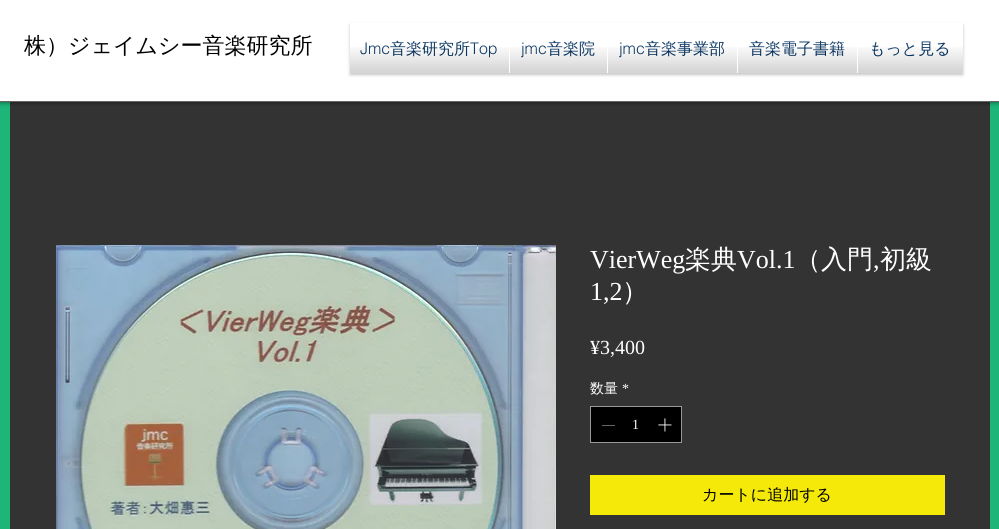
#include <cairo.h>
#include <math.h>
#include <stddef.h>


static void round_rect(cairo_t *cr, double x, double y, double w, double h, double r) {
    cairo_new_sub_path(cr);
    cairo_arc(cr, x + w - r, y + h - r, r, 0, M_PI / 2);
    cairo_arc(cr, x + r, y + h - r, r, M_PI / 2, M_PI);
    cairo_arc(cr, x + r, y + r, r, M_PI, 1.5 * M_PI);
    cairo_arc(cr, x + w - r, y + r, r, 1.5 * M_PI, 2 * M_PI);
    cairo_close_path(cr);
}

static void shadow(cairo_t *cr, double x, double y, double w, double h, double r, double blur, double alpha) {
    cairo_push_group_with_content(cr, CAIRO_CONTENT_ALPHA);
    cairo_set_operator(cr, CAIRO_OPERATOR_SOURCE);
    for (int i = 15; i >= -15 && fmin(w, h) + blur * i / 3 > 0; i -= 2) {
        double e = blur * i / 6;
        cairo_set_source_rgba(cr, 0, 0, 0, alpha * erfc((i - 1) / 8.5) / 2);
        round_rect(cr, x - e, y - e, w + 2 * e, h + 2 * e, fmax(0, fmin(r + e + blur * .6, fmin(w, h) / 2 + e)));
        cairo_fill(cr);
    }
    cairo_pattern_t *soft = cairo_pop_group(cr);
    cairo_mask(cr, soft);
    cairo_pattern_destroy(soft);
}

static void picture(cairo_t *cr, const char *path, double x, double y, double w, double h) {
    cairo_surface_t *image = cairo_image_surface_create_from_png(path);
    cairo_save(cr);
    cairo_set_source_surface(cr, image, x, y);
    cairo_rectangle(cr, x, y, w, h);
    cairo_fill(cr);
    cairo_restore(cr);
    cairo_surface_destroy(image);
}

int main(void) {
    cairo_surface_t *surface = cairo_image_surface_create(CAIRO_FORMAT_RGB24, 999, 529);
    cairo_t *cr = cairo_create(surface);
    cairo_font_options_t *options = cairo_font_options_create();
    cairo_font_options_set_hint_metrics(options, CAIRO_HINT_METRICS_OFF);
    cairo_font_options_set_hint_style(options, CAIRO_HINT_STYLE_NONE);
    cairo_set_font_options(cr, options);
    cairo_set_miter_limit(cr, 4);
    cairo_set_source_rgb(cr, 0.114, 0.71, 0.471);
    cairo_paint(cr);
    cairo_set_source_rgb(cr, 0.2, 0.2, 0.2);
    cairo_rectangle(cr, 10, 102, 980, 427);
    cairo_fill(cr);
    cairo_set_source_rgb(cr, 0, 0, 0);
    shadow(cr, 0, 0, 999, 102, 0, 2.5, 0.6);
    cairo_set_source_rgb(cr, 1, 1, 1);
    cairo_rectangle(cr, 0, 0, 999, 101);
    cairo_fill(cr);
    cairo_set_source_rgb(cr, 0.4, 0.4, 0.4);
    cairo_rectangle(cr, 0, 101, 999, 1);
    cairo_fill(cr);
    cairo_select_font_face(cr, "WenQuanYi Zen Hei Medium", CAIRO_FONT_SLANT_NORMAL, CAIRO_FONT_WEIGHT_NORMAL);
    cairo_set_font_size(cr, 22);
    cairo_set_source_rgb(cr, 0, 0, 0);
    cairo_move_to(cr, 24, 53);
    cairo_show_text(cr, "株）ジェイムシー音楽研究所");
    cairo_set_source_rgb(cr, 0.635, 0.62, 0.62);
    shadow(cr, 350, 25, 613, 50, 0, 1.5, 0.6);
    cairo_set_source_rgb(cr, 1, 1, 1);
    cairo_rectangle(cr, 350, 23, 613, 50);
    cairo_fill(cr);
    cairo_select_font_face(cr, "helvetica Light", CAIRO_FONT_SLANT_NORMAL, CAIRO_FONT_WEIGHT_NORMAL);
    cairo_set_font_size(cr, 16);
    cairo_set_source_rgb(cr, 0, 0.18, 0.365);
    cairo_move_to(cr, 360, 54);
    cairo_show_text(cr, "Jmc");
    cairo_select_font_face(cr, "WenQuanYi Zen Hei Medium", CAIRO_FONT_SLANT_NORMAL, CAIRO_FONT_WEIGHT_NORMAL);
    cairo_move_to(cr, 390, 54);
    cairo_show_text(cr, "音楽研究所");
    cairo_select_font_face(cr, "helvetica Light", CAIRO_FONT_SLANT_NORMAL, CAIRO_FONT_WEIGHT_NORMAL);
    cairo_move_to(cr, 470, 54);
    cairo_show_text(cr, "Top");
    picture(cr, "img1.png", 360, 40, 137, 16);
    picture(cr, "img2.png", 350, 47, 159, 26);
    cairo_move_to(cr, 521, 54);
    cairo_show_text(cr, "jmc");
    cairo_select_font_face(cr, "WenQuanYi Zen Hei Medium", CAIRO_FONT_SLANT_NORMAL, CAIRO_FONT_WEIGHT_NORMAL);
    cairo_move_to(cr, 547, 54);
    cairo_show_text(cr, "音楽院");
    picture(cr, "img3.png", 522, 40, 72, 16);
    picture(cr, "img4.png", 510, 47, 97, 26);
    cairo_select_font_face(cr, "helvetica Light", CAIRO_FONT_SLANT_NORMAL, CAIRO_FONT_WEIGHT_NORMAL);
    cairo_move_to(cr, 619, 54);
    cairo_show_text(cr, "jmc");
    cairo_select_font_face(cr, "WenQuanYi Zen Hei Medium", CAIRO_FONT_SLANT_NORMAL, CAIRO_FONT_WEIGHT_NORMAL);
    cairo_move_to(cr, 645, 54);
    cairo_show_text(cr, "音楽事業部");
    picture(cr, "img5.png", 620, 40, 104, 16);
    picture(cr, "img6.png", 608, 47, 129, 26);
    cairo_move_to(cr, 749, 54);
    cairo_show_text(cr, "音楽電子書籍");
    picture(cr, "img7.png", 749, 40, 95, 16);
    picture(cr, "img8.png", 738, 47, 119, 26);
    cairo_move_to(cr, 869, 54);
    cairo_show_text(cr, "もっと見る");
    picture(cr, "img9.png", 872, 41, 76, 15);
    picture(cr, "img10.png", 858, 47, 105, 26);
    picture(cr, "img11.png", 56, 245, 500, 284);
    cairo_select_font_face(cr, "Liberation Serif", CAIRO_FONT_SLANT_NORMAL, CAIRO_FONT_WEIGHT_NORMAL);
    cairo_set_font_size(cr, 26);
    cairo_set_source_rgb(cr, 1, 1, 1);
    cairo_move_to(cr, 590, 268);
    cairo_show_text(cr, "VierWeg");
    cairo_select_font_face(cr, "WenQuanYi Zen Hei Medium", CAIRO_FONT_SLANT_NORMAL, CAIRO_FONT_WEIGHT_NORMAL);
    cairo_move_to(cr, 685, 268);
    cairo_show_text(cr, "楽典");
    cairo_select_font_face(cr, "Liberation Serif", CAIRO_FONT_SLANT_NORMAL, CAIRO_FONT_WEIGHT_NORMAL);
    cairo_move_to(cr, 737, 268);
    cairo_show_text(cr, "Vol.1");
    cairo_select_font_face(cr, "WenQuanYi Zen Hei Medium", CAIRO_FONT_SLANT_NORMAL, CAIRO_FONT_WEIGHT_NORMAL);
    cairo_move_to(cr, 795, 268);
    cairo_show_text(cr, "（入門");
    cairo_select_font_face(cr, "Liberation Serif", CAIRO_FONT_SLANT_NORMAL, CAIRO_FONT_WEIGHT_NORMAL);
    cairo_move_to(cr, 873, 268);
    cairo_show_text(cr, ",");
    cairo_select_font_face(cr, "WenQuanYi Zen Hei Medium", CAIRO_FONT_SLANT_NORMAL, CAIRO_FONT_WEIGHT_NORMAL);
    cairo_move_to(cr, 880, 268);
    cairo_show_text(cr, "初級");
    cairo_select_font_face(cr, "Liberation Serif", CAIRO_FONT_SLANT_NORMAL, CAIRO_FONT_WEIGHT_NORMAL);
    cairo_move_to(cr, 590, 300);
    cairo_show_text(cr, "1,2");
    cairo_select_font_face(cr, "WenQuanYi Zen Hei Medium", CAIRO_FONT_SLANT_NORMAL, CAIRO_FONT_WEIGHT_NORMAL);
    cairo_move_to(cr, 622, 300);
    cairo_show_text(cr, "）");
    cairo_select_font_face(cr, "Liberation Serif", CAIRO_FONT_SLANT_NORMAL, CAIRO_FONT_WEIGHT_NORMAL);
    cairo_set_font_size(cr, 20);
    cairo_move_to(cr, 590, 354);
    cairo_show_text(cr, "¥3,400");
    cairo_select_font_face(cr, "WenQuanYi Zen Hei Medium", CAIRO_FONT_SLANT_NORMAL, CAIRO_FONT_WEIGHT_NORMAL);
    cairo_set_font_size(cr, 14);
    cairo_move_to(cr, 590, 393);
    cairo_show_text(cr, "数量");
    cairo_select_font_face(cr, "Liberation Serif", CAIRO_FONT_SLANT_NORMAL, CAIRO_FONT_WEIGHT_NORMAL);
    cairo_move_to(cr, 622, 393);
    cairo_show_text(cr, "*");
    cairo_set_source_rgb(cr, 0, 0, 0);
    cairo_rectangle(cr, 590.5, 406.5, 91, 36);
    cairo_fill_preserve(cr);
    cairo_set_source_rgb(cr, 0.6, 0.6, 0.6);
    cairo_set_line_width(cr, 1);
    cairo_stroke(cr);
    cairo_set_source_rgb(cr, 0.392, 0.392, 0.392);
    cairo_rectangle(cr, 602, 425, 13, 1);
    cairo_fill(cr);
    cairo_set_source_rgb(cr, 1, 1, 1);
    cairo_move_to(cr, 632, 429);
    cairo_show_text(cr, "1");
    picture(cr, "img12.png", 658, 418, 14, 14);
    cairo_set_source_rgb(cr, 0.957, 0.914, 0.035);
    cairo_rectangle(cr, 590, 475, 355, 40);
    cairo_fill(cr);
    cairo_select_font_face(cr, "WenQuanYi Zen Hei Medium", CAIRO_FONT_SLANT_NORMAL, CAIRO_FONT_WEIGHT_NORMAL);
    cairo_set_font_size(cr, 16);
    cairo_set_source_rgb(cr, 0, 0, 0);
    cairo_move_to(cr, 702, 500);
    cairo_show_text(cr, "カートに追加する");
    cairo_surface_write_to_png(surface, "page.png");
    cairo_font_options_destroy(options);
    cairo_destroy(cr);
    cairo_surface_destroy(surface);
    return 0;
}
